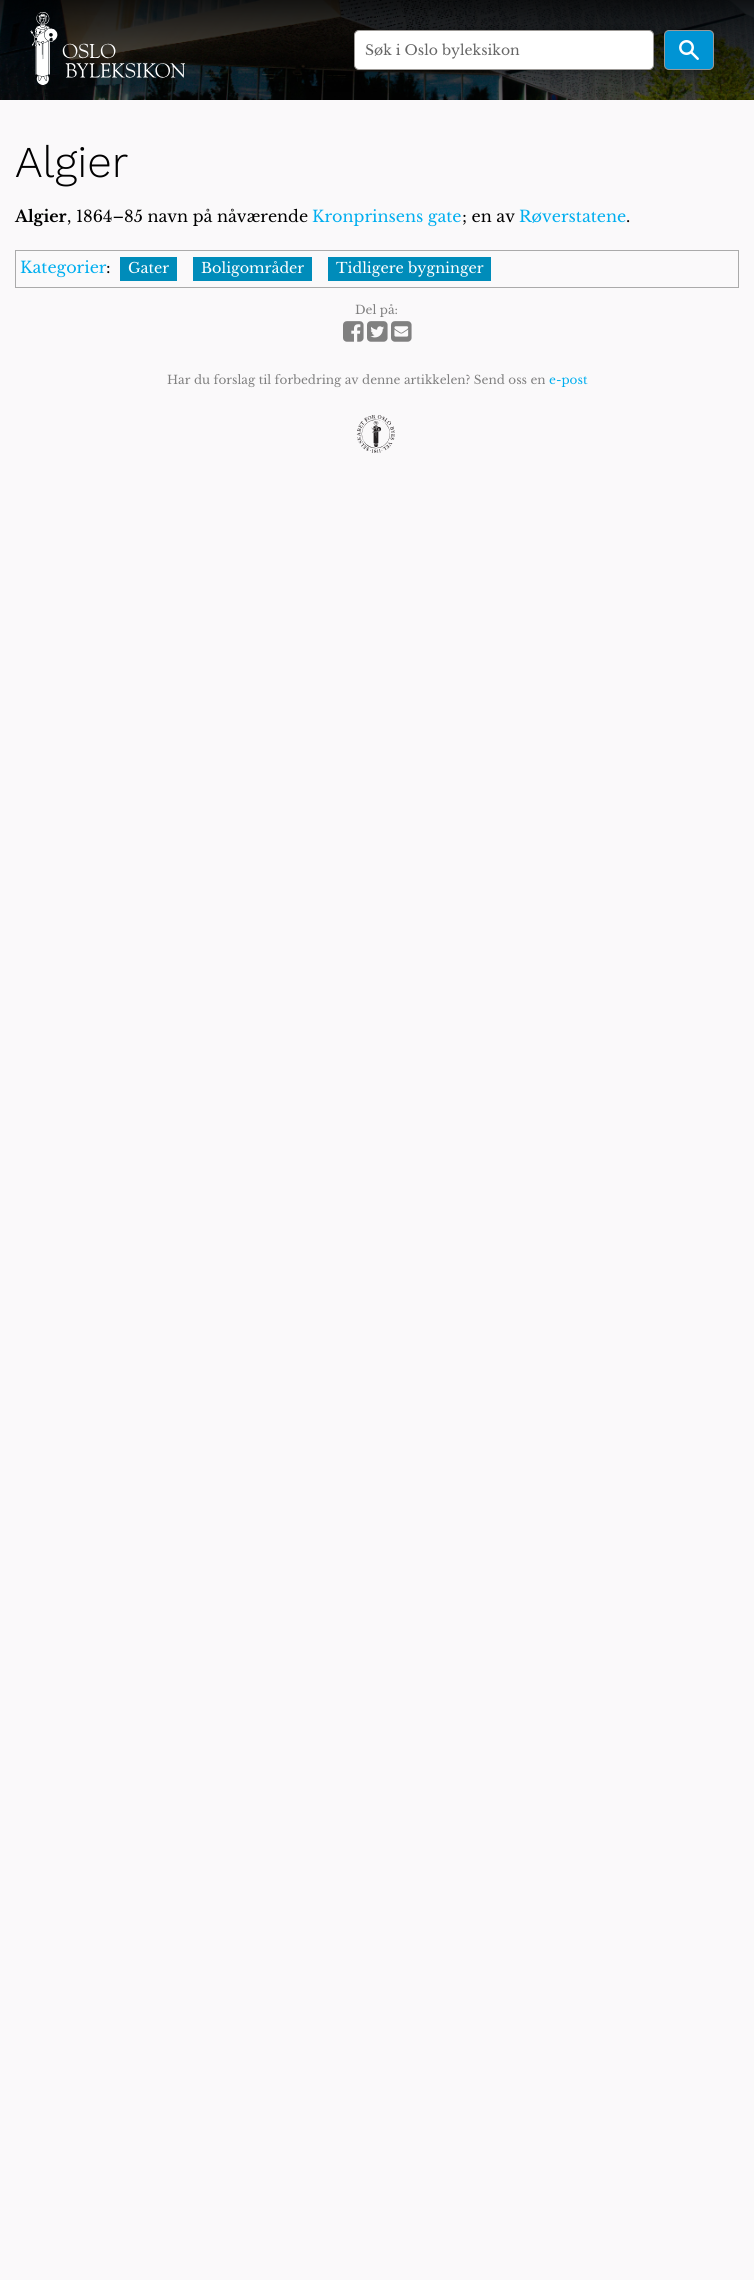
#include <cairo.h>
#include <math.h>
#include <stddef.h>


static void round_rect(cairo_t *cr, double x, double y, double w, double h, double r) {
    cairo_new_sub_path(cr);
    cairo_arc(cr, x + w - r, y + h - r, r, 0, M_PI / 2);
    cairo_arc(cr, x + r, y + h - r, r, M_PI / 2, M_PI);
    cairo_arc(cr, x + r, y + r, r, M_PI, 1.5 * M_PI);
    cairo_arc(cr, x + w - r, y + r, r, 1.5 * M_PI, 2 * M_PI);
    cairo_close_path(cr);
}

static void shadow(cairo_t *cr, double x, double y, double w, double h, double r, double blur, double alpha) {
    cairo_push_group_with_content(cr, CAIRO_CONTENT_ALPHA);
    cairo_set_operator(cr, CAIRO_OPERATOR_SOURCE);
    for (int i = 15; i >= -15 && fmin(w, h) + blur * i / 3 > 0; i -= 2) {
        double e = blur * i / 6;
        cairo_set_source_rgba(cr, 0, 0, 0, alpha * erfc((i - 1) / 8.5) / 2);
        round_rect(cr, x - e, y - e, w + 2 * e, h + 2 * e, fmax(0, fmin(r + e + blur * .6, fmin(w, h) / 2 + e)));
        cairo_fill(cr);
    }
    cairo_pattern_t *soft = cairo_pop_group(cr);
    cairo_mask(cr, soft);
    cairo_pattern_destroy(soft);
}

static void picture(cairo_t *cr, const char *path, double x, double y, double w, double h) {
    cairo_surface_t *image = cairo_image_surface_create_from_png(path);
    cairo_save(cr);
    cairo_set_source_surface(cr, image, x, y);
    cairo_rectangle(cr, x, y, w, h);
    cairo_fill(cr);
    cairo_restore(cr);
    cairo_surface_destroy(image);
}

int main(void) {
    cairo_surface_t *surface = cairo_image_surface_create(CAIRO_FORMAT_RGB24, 754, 2280);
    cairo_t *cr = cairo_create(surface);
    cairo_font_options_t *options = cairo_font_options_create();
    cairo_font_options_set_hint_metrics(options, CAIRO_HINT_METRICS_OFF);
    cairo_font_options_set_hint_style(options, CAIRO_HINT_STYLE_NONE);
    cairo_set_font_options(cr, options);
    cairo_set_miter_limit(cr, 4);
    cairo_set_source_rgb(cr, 0.98, 0.976, 0.98);
    cairo_paint(cr);
    picture(cr, "img1.png", 0, 0, 754, 100);
    picture(cr, "img2.png", 30, 12, 155, 73);
    cairo_set_source_rgb(cr, 0, 0, 0);
    shadow(cr, 357, 33, 294, 34, 2, 5, 0.75);
    cairo_set_source_rgb(cr, 1, 1, 1);
    round_rect(cr, 354.5, 30.5, 299, 39, 4.5);
    cairo_fill_preserve(cr);
    cairo_set_source_rgb(cr, 0.608, 0.596, 0.584);
    cairo_set_line_width(cr, 1);
    cairo_stroke(cr);
    cairo_select_font_face(cr, "Libre Baskerville", CAIRO_FONT_SLANT_NORMAL, CAIRO_FONT_WEIGHT_NORMAL);
    cairo_set_font_size(cr, 14);
    cairo_set_source_rgb(cr, 0.4, 0.4, 0.4);
    cairo_move_to(cr, 365, 55);
    cairo_show_text(cr, "Søk i Oslo byleksikon");
    cairo_set_source_rgb(cr, 0, 0, 0);
    shadow(cr, 667, 33, 44, 34, 2, 5, 0.75);
    cairo_set_source_rgb(cr, 0, 0.58, 0.831);
    round_rect(cr, 664.5, 30.5, 49, 39, 4.5);
    cairo_fill_preserve(cr);
    cairo_set_source_rgb(cr, 0.608, 0.596, 0.584);
    cairo_stroke(cr);
    picture(cr, "img3.png", 679, 40, 20, 20);
    cairo_select_font_face(cr, "Work Sans Light", CAIRO_FONT_SLANT_NORMAL, CAIRO_FONT_WEIGHT_NORMAL);
    cairo_set_font_size(cr, 44);
    cairo_set_source_rgb(cr, 0, 0, 0);
    cairo_move_to(cr, 15, 177);
    cairo_show_text(cr, "Algier");
    cairo_select_font_face(cr, "Libre Baskerville", CAIRO_FONT_SLANT_NORMAL, CAIRO_FONT_WEIGHT_BOLD);
    cairo_set_font_size(cr, 16);
    cairo_move_to(cr, 15, 222);
    cairo_show_text(cr, "Algier");
    cairo_select_font_face(cr, "Libre Baskerville", CAIRO_FONT_SLANT_NORMAL, CAIRO_FONT_WEIGHT_NORMAL);
    cairo_move_to(cr, 67, 222);
    cairo_show_text(cr, ", 1864–85 navn på nåværende");
    cairo_set_source_rgb(cr, 0, 0.682, 0.937);
    cairo_move_to(cr, 312, 222);
    cairo_show_text(cr, "Kronprinsens gate");
    cairo_set_source_rgb(cr, 0, 0, 0);
    cairo_move_to(cr, 462, 222);
    cairo_show_text(cr, "; en av");
    cairo_set_source_rgb(cr, 0, 0.682, 0.937);
    cairo_move_to(cr, 519, 222);
    cairo_show_text(cr, "Røverstatene");
    cairo_set_source_rgb(cr, 0, 0, 0);
    cairo_move_to(cr, 626, 222);
    cairo_show_text(cr, ".");
    cairo_rectangle(cr, 15.5, 250.5, 723, 37);
    cairo_set_source_rgb(cr, 0.667, 0.667, 0.667);
    cairo_stroke(cr);
    cairo_set_source_rgb(cr, 0, 0.682, 0.937);
    cairo_move_to(cr, 20, 273);
    cairo_show_text(cr, "Kategorier");
    cairo_set_source_rgb(cr, 0, 0, 0);
    cairo_move_to(cr, 106, 273);
    cairo_show_text(cr, ":");
    cairo_set_source_rgb(cr, 0, 0.549, 0.729);
    cairo_rectangle(cr, 120, 257, 57, 24);
    cairo_fill(cr);
    cairo_set_font_size(cr, 14.4);
    cairo_set_source_rgb(cr, 1, 1, 1);
    cairo_move_to(cr, 128, 273);
    cairo_show_text(cr, "Gater");
    cairo_set_source_rgb(cr, 0, 0.549, 0.729);
    cairo_rectangle(cr, 193, 257, 119, 24);
    cairo_fill(cr);
    cairo_set_source_rgb(cr, 1, 1, 1);
    cairo_move_to(cr, 201, 273);
    cairo_show_text(cr, "Boligområder");
    cairo_set_source_rgb(cr, 0, 0.549, 0.729);
    cairo_rectangle(cr, 328, 257, 163, 24);
    cairo_fill(cr);
    cairo_set_source_rgb(cr, 1, 1, 1);
    cairo_move_to(cr, 336, 273);
    cairo_show_text(cr, "Tidligere bygninger");
    cairo_set_font_size(cr, 12);
    cairo_set_source_rgb(cr, 0.502, 0.502, 0.502);
    cairo_move_to(cr, 355, 314);
    cairo_show_text(cr, "Del på:");
    picture(cr, "img4.png", 343, 321, 21, 21);
    picture(cr, "img5.png", 367, 321, 21, 21);
    picture(cr, "img6.png", 391, 321, 21, 21);
    cairo_move_to(cr, 167, 384);
    cairo_show_text(cr, "Har du forslag til forbedring av denne artikkelen? Send oss en");
    cairo_set_source_rgb(cr, 0, 0.682, 0.937);
    cairo_move_to(cr, 549, 384);
    cairo_show_text(cr, "e-post");
    picture(cr, "img7.png", 356, 415, 39, 38);
    cairo_surface_write_to_png(surface, "page.png");
    cairo_font_options_destroy(options);
    cairo_destroy(cr);
    cairo_surface_destroy(surface);
    return 0;
}
